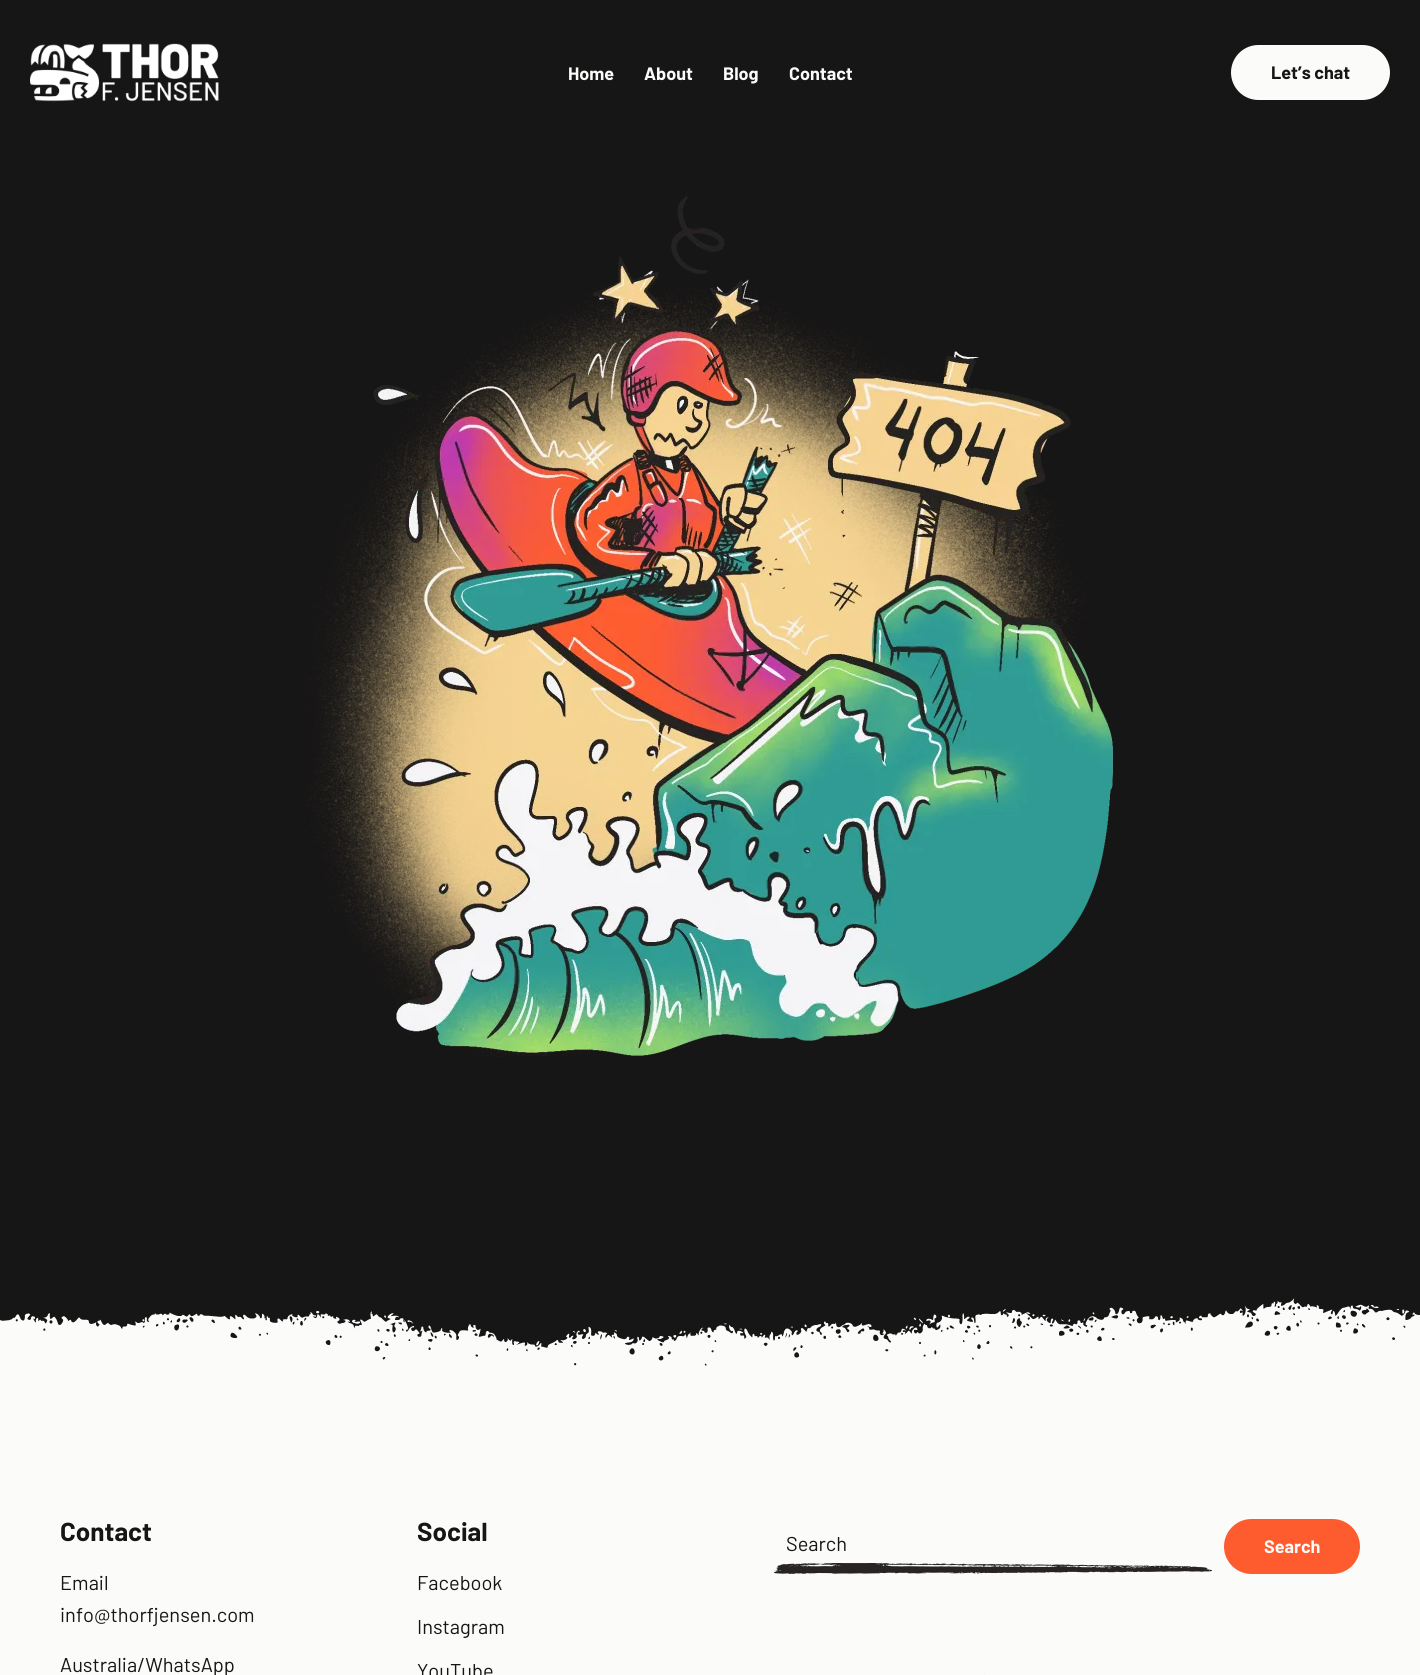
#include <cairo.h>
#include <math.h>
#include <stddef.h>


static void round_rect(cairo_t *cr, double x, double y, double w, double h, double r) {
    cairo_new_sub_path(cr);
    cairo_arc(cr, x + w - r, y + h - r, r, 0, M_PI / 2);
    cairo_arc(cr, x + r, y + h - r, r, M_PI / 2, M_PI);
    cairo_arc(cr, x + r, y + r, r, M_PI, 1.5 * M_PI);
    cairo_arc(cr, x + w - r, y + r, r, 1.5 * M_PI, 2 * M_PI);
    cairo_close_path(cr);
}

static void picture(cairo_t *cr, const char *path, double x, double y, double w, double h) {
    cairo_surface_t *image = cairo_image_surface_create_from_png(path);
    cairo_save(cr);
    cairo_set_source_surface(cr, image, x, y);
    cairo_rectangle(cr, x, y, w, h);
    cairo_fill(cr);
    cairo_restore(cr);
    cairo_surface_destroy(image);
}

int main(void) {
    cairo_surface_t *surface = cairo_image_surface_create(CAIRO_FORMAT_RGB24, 1420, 1675);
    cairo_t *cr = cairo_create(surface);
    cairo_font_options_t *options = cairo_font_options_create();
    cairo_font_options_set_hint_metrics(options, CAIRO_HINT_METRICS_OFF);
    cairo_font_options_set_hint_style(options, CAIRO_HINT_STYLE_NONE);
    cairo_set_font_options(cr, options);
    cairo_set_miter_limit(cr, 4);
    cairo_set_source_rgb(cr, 0.984, 0.984, 0.98);
    cairo_paint(cr);
    cairo_set_source_rgb(cr, 0.09, 0.086, 0.086);
    cairo_rectangle(cr, 0, 0, 1420, 1173);
    cairo_fill(cr);
    picture(cr, "img1.png", 300, 196, 813, 861);
    picture(cr, "img2.png", 30, 43, 189, 59);
    cairo_select_font_face(cr, "Barlow", CAIRO_FONT_SLANT_NORMAL, CAIRO_FONT_WEIGHT_BOLD);
    cairo_set_font_size(cr, 18);
    cairo_set_source_rgb(cr, 0.984, 0.984, 0.98);
    cairo_move_to(cr, 568, 80);
    cairo_show_text(cr, "Home");
    cairo_move_to(cr, 644, 80);
    cairo_show_text(cr, "About");
    cairo_move_to(cr, 723, 80);
    cairo_show_text(cr, "Blog");
    cairo_move_to(cr, 789, 80);
    cairo_show_text(cr, "Contact");
    round_rect(cr, 1231, 45, 159, 55, 27.5);
    cairo_fill(cr);
    cairo_set_source_rgb(cr, 0.09, 0.086, 0.086);
    cairo_move_to(cr, 1271, 79);
    cairo_show_text(cr, "Let’s chat");
    picture(cr, "img3.png", 0, 1173, 1420, 193);
    cairo_set_font_size(cr, 26);
    cairo_move_to(cr, 60, 1541);
    cairo_show_text(cr, "Contact");
    cairo_select_font_face(cr, "Barlow", CAIRO_FONT_SLANT_NORMAL, CAIRO_FONT_WEIGHT_NORMAL);
    cairo_set_font_size(cr, 20);
    cairo_move_to(cr, 60, 1590);
    cairo_show_text(cr, "Email");
    cairo_move_to(cr, 60, 1622);
    cairo_show_text(cr, "info@thorfjensen.com");
    cairo_move_to(cr, 60, 1672);
    cairo_show_text(cr, "Australia/WhatsApp");
    cairo_select_font_face(cr, "Barlow", CAIRO_FONT_SLANT_NORMAL, CAIRO_FONT_WEIGHT_BOLD);
    cairo_set_font_size(cr, 26);
    cairo_move_to(cr, 417, 1541);
    cairo_show_text(cr, "Social");
    cairo_select_font_face(cr, "Barlow", CAIRO_FONT_SLANT_NORMAL, CAIRO_FONT_WEIGHT_NORMAL);
    cairo_set_font_size(cr, 20);
    cairo_move_to(cr, 417, 1590);
    cairo_show_text(cr, "Facebook");
    cairo_move_to(cr, 417, 1634);
    cairo_show_text(cr, "Instagram");
    cairo_move_to(cr, 417, 1678);
    cairo_show_text(cr, "YouTube");
    picture(cr, "img4.png", 774, 1563, 438, 11);
    cairo_move_to(cr, 786, 1551);
    cairo_show_text(cr, "Search");
    cairo_set_source_rgb(cr, 0.996, 0.361, 0.184);
    round_rect(cr, 1224, 1519, 136, 55, 27.5);
    cairo_fill(cr);
    cairo_select_font_face(cr, "Barlow", CAIRO_FONT_SLANT_NORMAL, CAIRO_FONT_WEIGHT_BOLD);
    cairo_set_font_size(cr, 18);
    cairo_set_source_rgb(cr, 0.984, 0.984, 0.98);
    cairo_move_to(cr, 1264, 1553);
    cairo_show_text(cr, "Search");
    cairo_set_source_rgb(cr, 0.965, 0.965, 0.961);
    cairo_rectangle(cr, 984, 1674, 1, 1);
    cairo_fill(cr);
    cairo_surface_write_to_png(surface, "page.png");
    cairo_font_options_destroy(options);
    cairo_destroy(cr);
    cairo_surface_destroy(surface);
    return 0;
}
